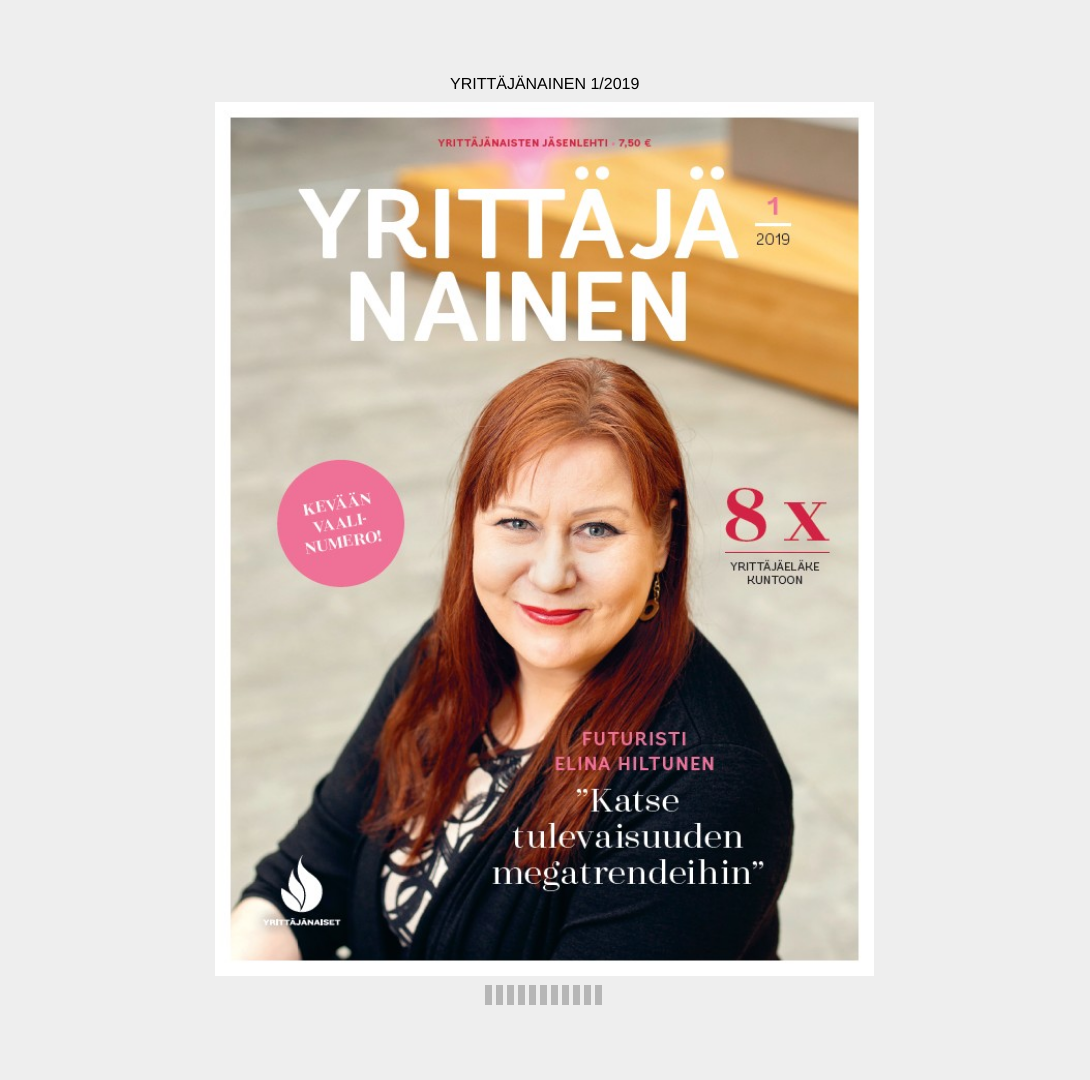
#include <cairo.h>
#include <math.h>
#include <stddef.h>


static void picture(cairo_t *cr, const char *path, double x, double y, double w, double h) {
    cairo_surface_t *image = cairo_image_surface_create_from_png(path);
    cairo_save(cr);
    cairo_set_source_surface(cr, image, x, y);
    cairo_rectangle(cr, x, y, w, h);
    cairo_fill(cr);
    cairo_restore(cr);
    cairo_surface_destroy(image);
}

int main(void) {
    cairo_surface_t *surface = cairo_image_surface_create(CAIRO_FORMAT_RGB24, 1090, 1080);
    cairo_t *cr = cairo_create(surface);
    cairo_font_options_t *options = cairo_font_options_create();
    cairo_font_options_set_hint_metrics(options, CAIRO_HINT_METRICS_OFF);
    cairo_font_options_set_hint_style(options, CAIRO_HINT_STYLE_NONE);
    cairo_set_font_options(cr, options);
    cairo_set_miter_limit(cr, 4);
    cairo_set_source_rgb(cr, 0.933, 0.933, 0.933);
    cairo_paint(cr);
    cairo_select_font_face(cr, "Liberation Sans", CAIRO_FONT_SLANT_NORMAL, CAIRO_FONT_WEIGHT_NORMAL);
    cairo_set_font_size(cr, 16);
    cairo_set_source_rgb(cr, 0, 0, 0);
    cairo_move_to(cr, 450, 89);
    cairo_show_text(cr, "YRITTÄJÄNAINEN 1/2019");
    picture(cr, "img1.png", 215, 102, 659, 874);
    picture(cr, "img2.png", 485, 985, 117, 20);
    cairo_surface_write_to_png(surface, "page.png");
    cairo_font_options_destroy(options);
    cairo_destroy(cr);
    cairo_surface_destroy(surface);
    return 0;
}
